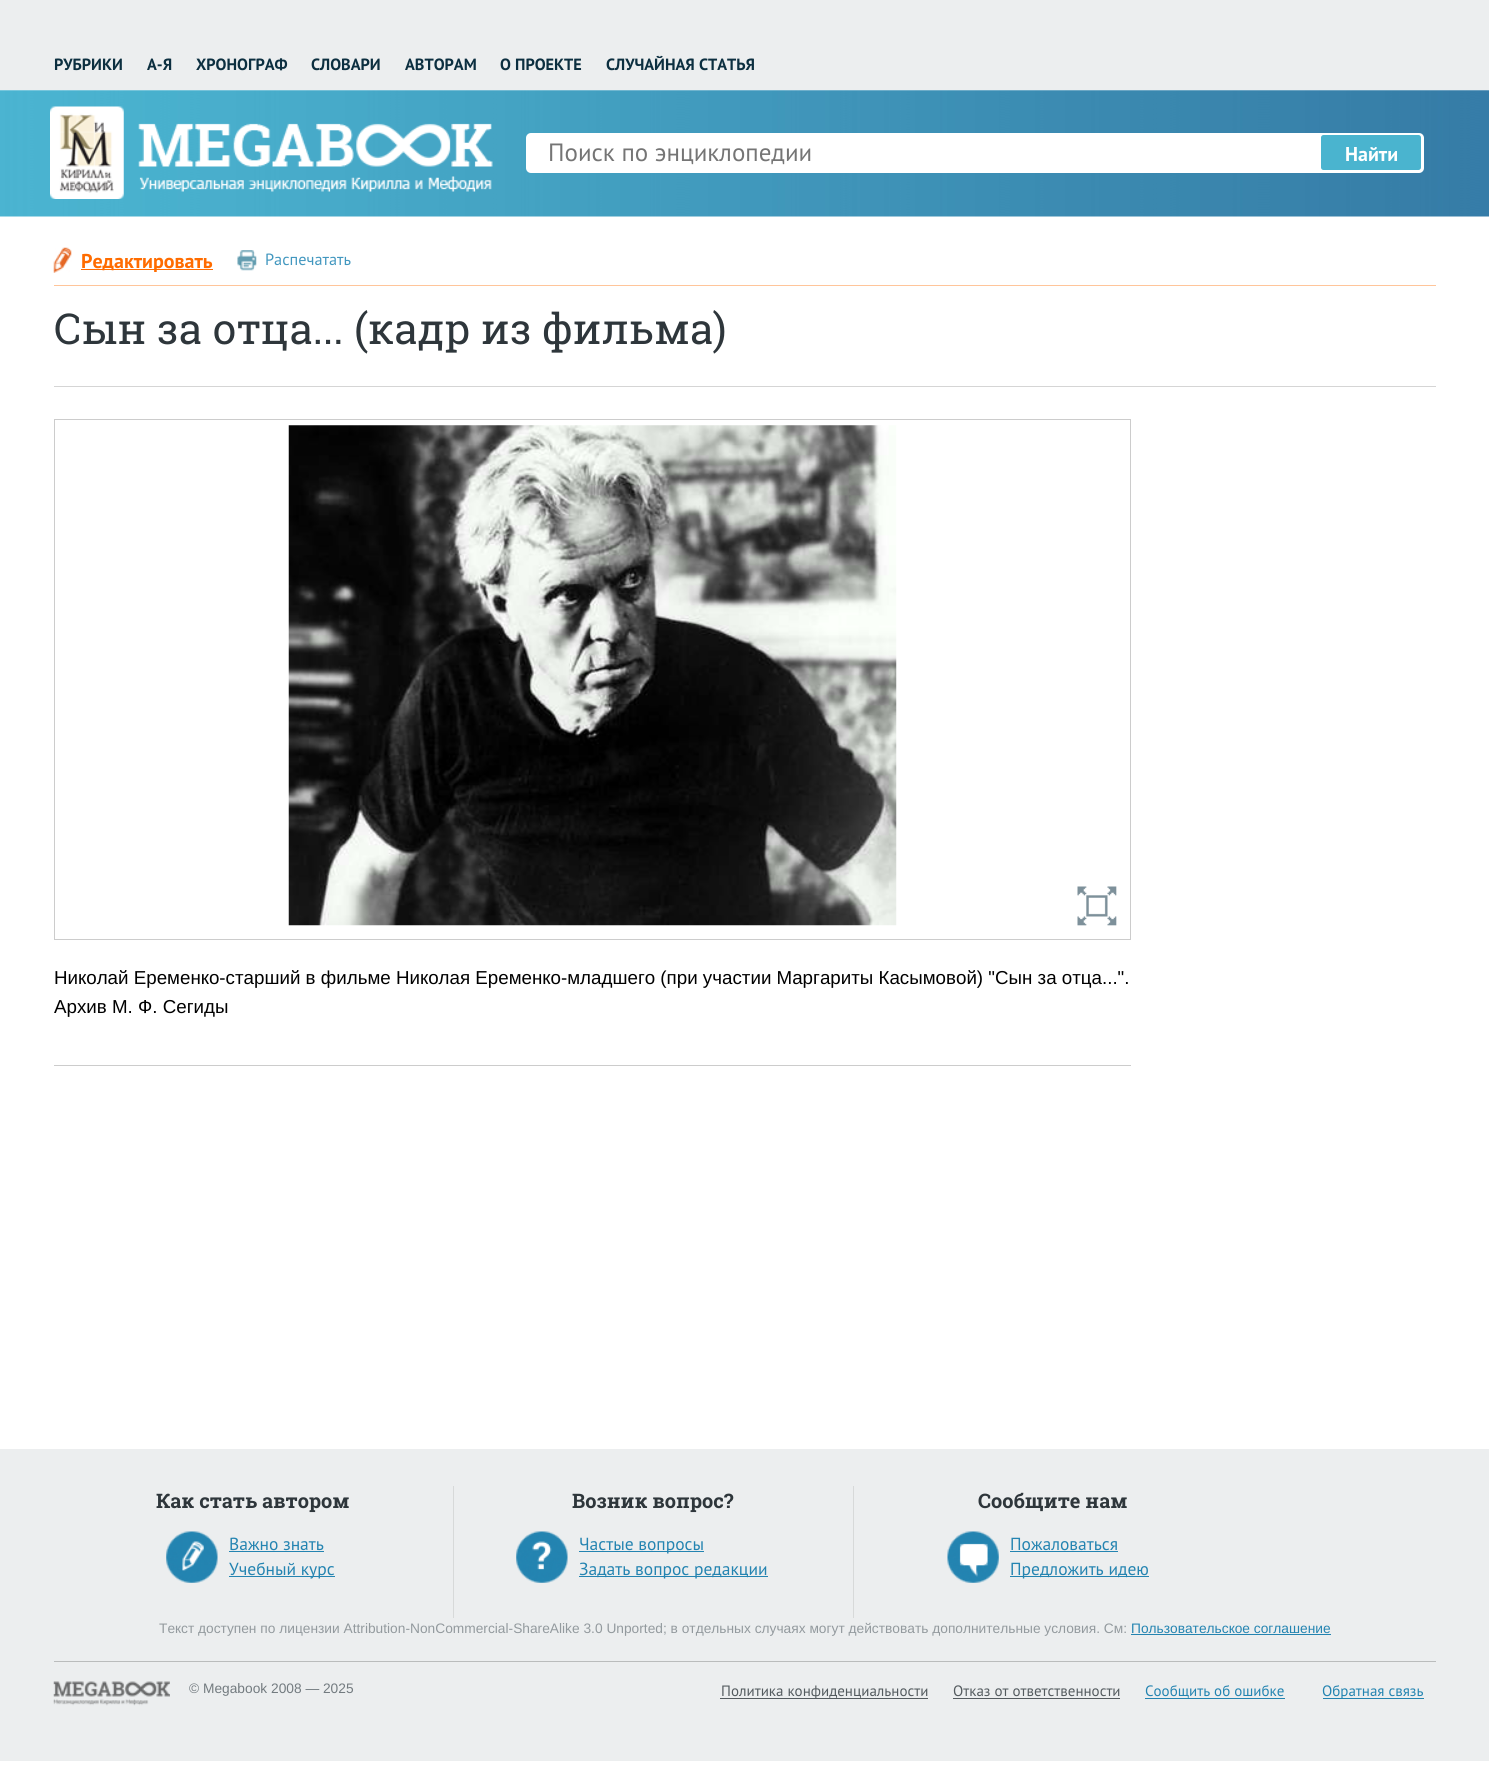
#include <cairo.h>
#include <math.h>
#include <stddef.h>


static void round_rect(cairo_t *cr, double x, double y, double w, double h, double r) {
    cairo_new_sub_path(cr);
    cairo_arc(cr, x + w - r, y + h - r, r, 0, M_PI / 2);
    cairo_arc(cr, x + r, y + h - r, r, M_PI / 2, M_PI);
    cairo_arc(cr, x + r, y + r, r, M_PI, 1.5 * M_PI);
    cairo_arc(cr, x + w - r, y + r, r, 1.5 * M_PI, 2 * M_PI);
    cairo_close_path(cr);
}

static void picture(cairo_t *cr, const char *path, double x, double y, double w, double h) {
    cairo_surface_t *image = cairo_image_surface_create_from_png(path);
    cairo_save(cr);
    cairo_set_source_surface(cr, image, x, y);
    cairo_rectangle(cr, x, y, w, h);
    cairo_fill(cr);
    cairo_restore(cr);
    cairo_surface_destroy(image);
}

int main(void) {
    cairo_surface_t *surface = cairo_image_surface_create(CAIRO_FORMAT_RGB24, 1489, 1767);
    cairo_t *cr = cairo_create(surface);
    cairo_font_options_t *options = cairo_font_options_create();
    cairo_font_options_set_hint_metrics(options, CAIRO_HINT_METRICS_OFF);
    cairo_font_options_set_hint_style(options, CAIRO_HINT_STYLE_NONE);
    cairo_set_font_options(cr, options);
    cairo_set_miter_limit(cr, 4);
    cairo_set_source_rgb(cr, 1, 1, 1);
    cairo_paint(cr);
    cairo_set_source_rgb(cr, 0.925, 0.933, 0.937);
    cairo_rectangle(cr, 0, 0, 1489, 90);
    cairo_fill(cr);
    cairo_select_font_face(cr, "PT Sans", CAIRO_FONT_SLANT_NORMAL, CAIRO_FONT_WEIGHT_BOLD);
    cairo_set_font_size(cr, 16.25);
    cairo_set_source_rgb(cr, 0.047, 0.184, 0.251);
    cairo_move_to(cr, 54, 70);
    cairo_show_text(cr, "РУБРИКИ");
    cairo_move_to(cr, 147, 70);
    cairo_show_text(cr, "А-Я");
    cairo_move_to(cr, 196, 70);
    cairo_show_text(cr, "ХРОНОГРАФ");
    cairo_move_to(cr, 311, 70);
    cairo_show_text(cr, "СЛОВАРИ");
    cairo_move_to(cr, 405, 70);
    cairo_show_text(cr, "АВТОРАМ");
    cairo_move_to(cr, 500, 70);
    cairo_show_text(cr, "О ПРОЕКТЕ");
    cairo_move_to(cr, 606, 70);
    cairo_show_text(cr, "СЛУЧАЙНАЯ СТАТЬЯ");
    picture(cr, "img1.png", 0, 90, 1489, 127);
    picture(cr, "img2.png", 50, 106, 443, 93);
    cairo_set_source_rgb(cr, 1, 1, 1);
    round_rect(cr, 526, 133, 898, 40, 5);
    cairo_fill(cr);
    cairo_select_font_face(cr, "PT Sans", CAIRO_FONT_SLANT_NORMAL, CAIRO_FONT_WEIGHT_NORMAL);
    cairo_set_font_size(cr, 25);
    cairo_set_source_rgb(cr, 0.459, 0.459, 0.459);
    cairo_move_to(cr, 548, 161);
    cairo_show_text(cr, "Поиск по энциклопедии");
    cairo_set_source_rgb(cr, 0.29, 0.706, 0.812);
    round_rect(cr, 1321, 135, 100, 35, 2.5);
    cairo_fill(cr);
    cairo_select_font_face(cr, "PT Sans", CAIRO_FONT_SLANT_NORMAL, CAIRO_FONT_WEIGHT_BOLD);
    cairo_set_font_size(cr, 20);
    cairo_set_source_rgb(cr, 1, 1, 1);
    cairo_move_to(cr, 1345, 161);
    cairo_show_text(cr, "Найти");
    picture(cr, "img3.png", 53, 247, 19, 26);
    cairo_set_source_rgb(cr, 1, 0.424, 0);
    cairo_rectangle(cr, 81, 269, 132, 1);
    cairo_fill(cr);
    cairo_move_to(cr, 81, 268);
    cairo_show_text(cr, "Редактировать");
    picture(cr, "img4.png", 237, 250, 20, 21);
    cairo_select_font_face(cr, "PT Sans", CAIRO_FONT_SLANT_NORMAL, CAIRO_FONT_WEIGHT_NORMAL);
    cairo_set_font_size(cr, 16.25);
    cairo_set_source_rgb(cr, 0.259, 0.592, 0.749);
    cairo_move_to(cr, 265, 265);
    cairo_show_text(cr, "Распечатать");
    cairo_set_source_rgb(cr, 1, 0.773, 0.604);
    cairo_rectangle(cr, 54, 285, 1382, 1);
    cairo_fill(cr);
    cairo_select_font_face(cr, "Roboto Slab", CAIRO_FONT_SLANT_NORMAL, CAIRO_FONT_WEIGHT_NORMAL);
    cairo_set_font_size(cr, 42.5);
    cairo_set_source_rgb(cr, 0.18, 0.212, 0.231);
    cairo_move_to(cr, 54, 344);
    cairo_show_text(cr, "Сын за отца... (кадр из фильма)");
    cairo_set_source_rgb(cr, 0.835, 0.835, 0.835);
    cairo_rectangle(cr, 54, 386, 1382, 1);
    cairo_fill(cr);
    cairo_rectangle(cr, 54.5, 419.5, 1076, 520);
    cairo_set_source_rgb(cr, 0.8, 0.8, 0.8);
    cairo_set_line_width(cr, 1);
    cairo_stroke(cr);
    picture(cr, "img5.png", 288, 425, 609, 501);
    picture(cr, "img6.png", 1077, 886, 40, 40);
    cairo_rectangle(cr, 54, 1065, 1077, 1);
    cairo_fill(cr);
    cairo_select_font_face(cr, "Liberation Sans", CAIRO_FONT_SLANT_NORMAL, CAIRO_FONT_WEIGHT_NORMAL);
    cairo_set_font_size(cr, 18.75);
    cairo_set_source_rgb(cr, 0, 0, 0);
    cairo_move_to(cr, 54, 984);
    cairo_show_text(cr, "Николай Еременко-старший в фильме Николая Еременко-младшего (при участии Маргариты Касымовой) \"Сын за отца...\".");
    cairo_move_to(cr, 54, 1013);
    cairo_show_text(cr, "Архив М. Ф. Сегиды");
    cairo_set_source_rgb(cr, 0.925, 0.933, 0.937);
    cairo_rectangle(cr, 0, 1449, 1489, 312);
    cairo_fill(cr);
    cairo_select_font_face(cr, "Roboto Slab", CAIRO_FONT_SLANT_NORMAL, CAIRO_FONT_WEIGHT_BOLD);
    cairo_set_font_size(cr, 20);
    cairo_set_source_rgb(cr, 0.18, 0.212, 0.231);
    cairo_move_to(cr, 156, 1508);
    cairo_show_text(cr, "Как стать автором");
    picture(cr, "img7.png", 166, 1531, 52, 52);
    cairo_select_font_face(cr, "PT Sans", CAIRO_FONT_SLANT_NORMAL, CAIRO_FONT_WEIGHT_NORMAL);
    cairo_set_font_size(cr, 17.5);
    cairo_set_source_rgb(cr, 0.141, 0.518, 0.694);
    cairo_move_to(cr, 229, 1550);
    cairo_show_text(cr, "Важно знать");
    cairo_rectangle(cr, 229, 1551, 95, 1);
    cairo_fill(cr);
    cairo_rectangle(cr, 229, 1576, 106, 1);
    cairo_fill(cr);
    cairo_move_to(cr, 229, 1575);
    cairo_show_text(cr, "Учебный курс");
    cairo_set_source_rgb(cr, 0.843, 0.851, 0.851);
    cairo_rectangle(cr, 853, 1486, 1, 132);
    cairo_fill(cr);
    cairo_rectangle(cr, 453, 1486, 1, 132);
    cairo_fill(cr);
    cairo_select_font_face(cr, "Roboto Slab", CAIRO_FONT_SLANT_NORMAL, CAIRO_FONT_WEIGHT_BOLD);
    cairo_set_font_size(cr, 20);
    cairo_set_source_rgb(cr, 0.18, 0.212, 0.231);
    cairo_move_to(cr, 572, 1508);
    cairo_show_text(cr, "Возник вопрос?");
    picture(cr, "img8.png", 516, 1531, 52, 52);
    cairo_set_source_rgb(cr, 0.141, 0.518, 0.694);
    cairo_rectangle(cr, 579, 1551, 125, 1);
    cairo_fill(cr);
    cairo_select_font_face(cr, "PT Sans", CAIRO_FONT_SLANT_NORMAL, CAIRO_FONT_WEIGHT_NORMAL);
    cairo_set_font_size(cr, 17.5);
    cairo_move_to(cr, 579, 1550);
    cairo_show_text(cr, "Частые вопросы");
    cairo_rectangle(cr, 579, 1576, 189, 1);
    cairo_fill(cr);
    cairo_move_to(cr, 579, 1575);
    cairo_show_text(cr, "Задать вопрос редакции");
    cairo_select_font_face(cr, "Roboto Slab", CAIRO_FONT_SLANT_NORMAL, CAIRO_FONT_WEIGHT_BOLD);
    cairo_set_font_size(cr, 20);
    cairo_set_source_rgb(cr, 0.18, 0.212, 0.231);
    cairo_move_to(cr, 978, 1508);
    cairo_show_text(cr, "Сообщите нам");
    picture(cr, "img9.png", 947, 1531, 52, 52);
    cairo_select_font_face(cr, "PT Sans", CAIRO_FONT_SLANT_NORMAL, CAIRO_FONT_WEIGHT_NORMAL);
    cairo_set_font_size(cr, 17.5);
    cairo_set_source_rgb(cr, 0.141, 0.518, 0.694);
    cairo_move_to(cr, 1010, 1550);
    cairo_show_text(cr, "Пожаловаться");
    cairo_rectangle(cr, 1010, 1551, 108, 1);
    cairo_fill(cr);
    cairo_rectangle(cr, 1010, 1576, 139, 1);
    cairo_fill(cr);
    cairo_move_to(cr, 1010, 1575);
    cairo_show_text(cr, "Предложить идею");
    cairo_set_source_rgb(cr, 0.729, 0.737, 0.737);
    cairo_rectangle(cr, 54, 1661, 1382, 1);
    cairo_fill(cr);
    cairo_select_font_face(cr, "Liberation Sans", CAIRO_FONT_SLANT_NORMAL, CAIRO_FONT_WEIGHT_NORMAL);
    cairo_set_font_size(cr, 13.75);
    cairo_set_source_rgb(cr, 0.576, 0.604, 0.62);
    cairo_move_to(cr, 159, 1633);
    cairo_show_text(cr, "Текст доступен по лицензии Attribution-NonCommercial-ShareAlike 3.0 Unported; в отдельных случаях могут действовать дополнительные условия. См:");
    cairo_set_source_rgb(cr, 0.141, 0.518, 0.694);
    cairo_move_to(cr, 1131, 1633);
    cairo_show_text(cr, "Пользовательское соглашение");
    cairo_rectangle(cr, 1131, 1634, 200, 1);
    cairo_fill(cr);
    picture(cr, "img10.png", 53, 1681, 117, 25);
    cairo_set_source_rgb(cr, 0.451, 0.482, 0.502);
    cairo_move_to(cr, 189, 1693);
    cairo_show_text(cr, "© Megabook 2008 — 2025");
    cairo_set_source_rgb(cr, 0.329, 0.357, 0.373);
    cairo_rectangle(cr, 720, 1698, 208, 1);
    cairo_fill(cr);
    cairo_select_font_face(cr, "PT Sans", CAIRO_FONT_SLANT_NORMAL, CAIRO_FONT_WEIGHT_NORMAL);
    cairo_set_font_size(cr, 15);
    cairo_move_to(cr, 721, 1696);
    cairo_show_text(cr, "Политика конфиденциальности");
    cairo_move_to(cr, 953, 1696);
    cairo_show_text(cr, "Отказ от ответственности");
    cairo_rectangle(cr, 953, 1698, 167, 1);
    cairo_fill(cr);
    cairo_set_source_rgb(cr, 0.141, 0.518, 0.694);
    cairo_move_to(cr, 1145, 1696);
    cairo_show_text(cr, "Сообщить об ошибке");
    cairo_rectangle(cr, 1145, 1698, 140, 1);
    cairo_fill(cr);
    cairo_rectangle(cr, 1323, 1698, 101, 1);
    cairo_fill(cr);
    cairo_move_to(cr, 1322, 1696);
    cairo_show_text(cr, "Обратная связь");
    cairo_surface_write_to_png(surface, "page.png");
    cairo_font_options_destroy(options);
    cairo_destroy(cr);
    cairo_surface_destroy(surface);
    return 0;
}
